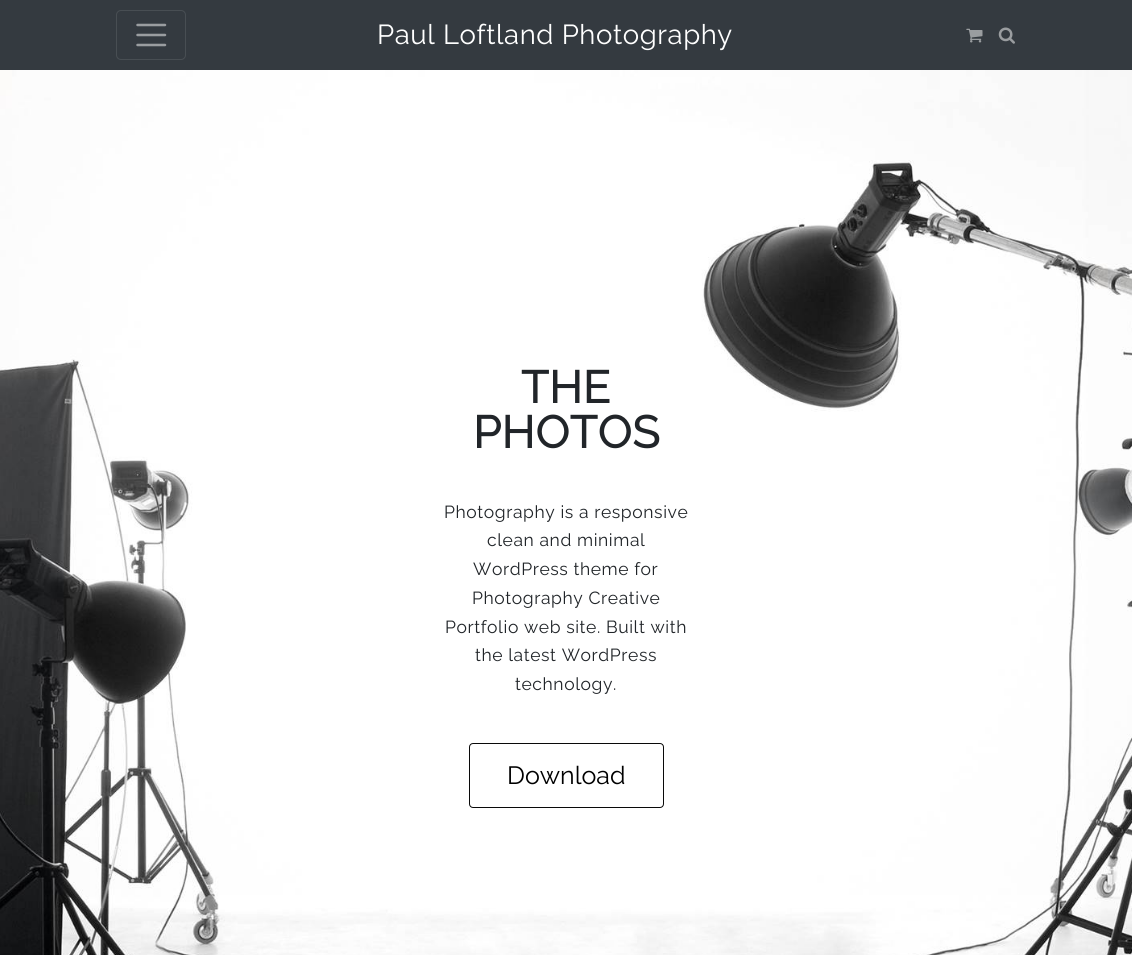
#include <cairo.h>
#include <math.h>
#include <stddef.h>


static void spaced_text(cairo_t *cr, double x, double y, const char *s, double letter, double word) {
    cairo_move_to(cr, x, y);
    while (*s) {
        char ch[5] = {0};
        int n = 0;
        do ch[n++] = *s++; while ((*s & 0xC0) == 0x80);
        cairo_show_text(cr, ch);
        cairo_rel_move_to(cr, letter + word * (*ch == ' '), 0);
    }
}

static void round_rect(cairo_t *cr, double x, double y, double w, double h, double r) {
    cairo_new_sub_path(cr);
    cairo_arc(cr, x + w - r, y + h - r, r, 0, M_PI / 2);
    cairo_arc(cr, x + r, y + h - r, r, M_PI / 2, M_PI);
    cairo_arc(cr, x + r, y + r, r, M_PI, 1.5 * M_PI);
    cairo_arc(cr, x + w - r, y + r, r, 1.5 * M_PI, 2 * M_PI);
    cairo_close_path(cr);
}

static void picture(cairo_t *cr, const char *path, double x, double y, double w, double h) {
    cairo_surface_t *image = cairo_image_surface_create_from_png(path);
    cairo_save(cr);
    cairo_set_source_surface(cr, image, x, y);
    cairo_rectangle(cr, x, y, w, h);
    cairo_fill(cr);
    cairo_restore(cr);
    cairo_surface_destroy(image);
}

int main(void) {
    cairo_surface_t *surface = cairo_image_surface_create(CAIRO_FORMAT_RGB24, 1132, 955);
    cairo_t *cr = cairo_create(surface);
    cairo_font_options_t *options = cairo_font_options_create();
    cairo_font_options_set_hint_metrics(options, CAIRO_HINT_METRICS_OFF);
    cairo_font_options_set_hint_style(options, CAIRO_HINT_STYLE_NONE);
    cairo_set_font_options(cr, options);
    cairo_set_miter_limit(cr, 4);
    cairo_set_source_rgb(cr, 1, 1, 1);
    cairo_paint(cr);
    cairo_set_source_rgb(cr, 0.204, 0.227, 0.251);
    cairo_rectangle(cr, 0, 0, 1132, 70);
    cairo_fill(cr);
    round_rect(cr, 116.5, 10.5, 69, 49, 4.5);
    cairo_set_source_rgb(cr, 0.282, 0.306, 0.325);
    cairo_set_line_width(cr, 1);
    cairo_stroke(cr);
    cairo_new_path(cr);
    cairo_move_to(cr, 137.5, 25);
    cairo_line_to(cr, 165, 25);
    cairo_move_to(cr, 137.5, 35);
    cairo_line_to(cr, 165, 35);
    cairo_move_to(cr, 137.5, 45);
    cairo_line_to(cr, 165, 45);
    cairo_set_source_rgb(cr, 0.604, 0.616, 0.627);
    cairo_set_line_width(cr, 2.5);
    cairo_set_line_cap(cr, CAIRO_LINE_CAP_ROUND);
    cairo_stroke(cr);
    cairo_select_font_face(cr, "Raleway Thin", CAIRO_FONT_SLANT_NORMAL, CAIRO_FONT_WEIGHT_NORMAL);
    cairo_set_font_size(cr, 27.5);
    cairo_set_source_rgb(cr, 1, 1, 1);
    spaced_text(cr, 377, 44, "Paul Loftland Photography", 0.6, 0);
    picture(cr, "img1.png", 966, 28, 17, 15);
    picture(cr, "img2.png", 998, 27, 17, 17);
    picture(cr, "img3.png", 0, 70, 1132, 885);
    cairo_select_font_face(cr, "Raleway", CAIRO_FONT_SLANT_NORMAL, CAIRO_FONT_WEIGHT_BOLD);
    cairo_set_font_size(cr, 45);
    cairo_set_source_rgb(cr, 0.129, 0.145, 0.161);
    spaced_text(cr, 521, 403, "THE", 0.6, 0);
    spaced_text(cr, 473, 448, "PHOTOS", 0.6, 0);
    cairo_select_font_face(cr, "Raleway Thin", CAIRO_FONT_SLANT_NORMAL, CAIRO_FONT_WEIGHT_NORMAL);
    cairo_set_font_size(cr, 17.5);
    spaced_text(cr, 444, 518, "Photography is a responsive", 0.6, 0);
    spaced_text(cr, 487, 546, "clean and minimal", 0.6, 0);
    spaced_text(cr, 473, 575, "WordPress theme for", 0.6, 0);
    spaced_text(cr, 472, 604, "Photography Creative", 0.6, 0);
    spaced_text(cr, 445, 633, "Portfolio web site. Built with", 0.6, 0);
    spaced_text(cr, 475, 661, "the latest WordPress", 0.6, 0);
    spaced_text(cr, 515, 690, "technology.", 0.6, 0);
    round_rect(cr, 469.5, 743.5, 194, 64, 3.5);
    cairo_set_source_rgb(cr, 0.039, 0.039, 0.039);
    cairo_set_line_width(cr, 1);
    cairo_set_line_cap(cr, CAIRO_LINE_CAP_BUTT);
    cairo_stroke(cr);
    cairo_set_font_size(cr, 25);
    cairo_set_source_rgb(cr, 0, 0, 0);
    cairo_move_to(cr, 507, 784);
    cairo_show_text(cr, "Download");
    cairo_surface_write_to_png(surface, "page.png");
    cairo_font_options_destroy(options);
    cairo_destroy(cr);
    cairo_surface_destroy(surface);
    return 0;
}
